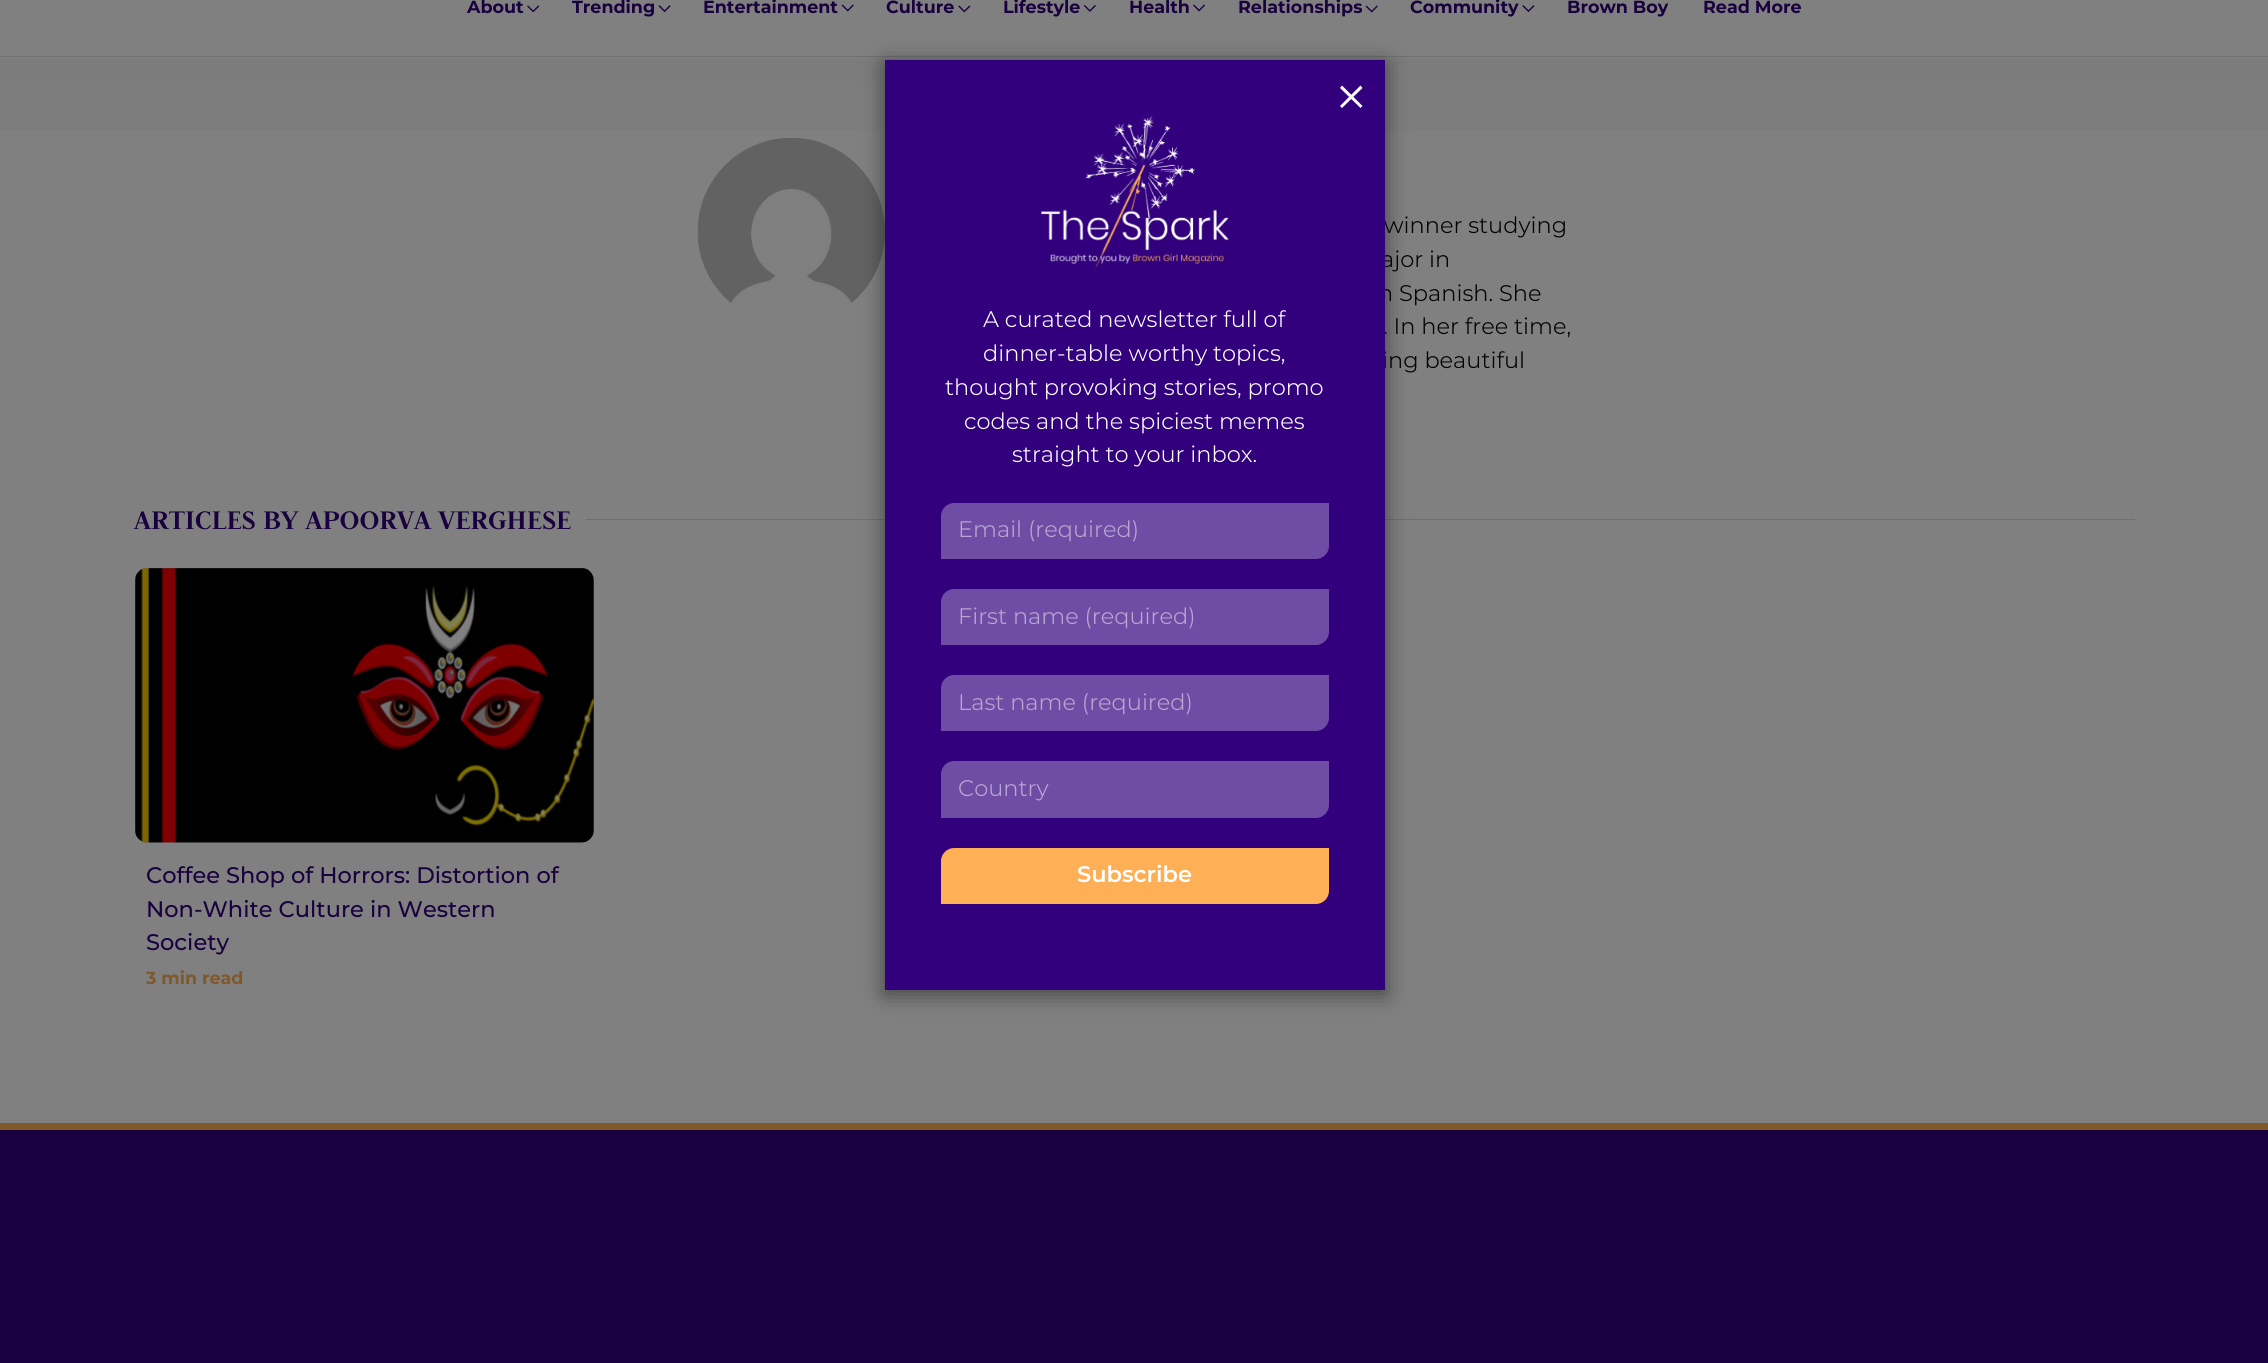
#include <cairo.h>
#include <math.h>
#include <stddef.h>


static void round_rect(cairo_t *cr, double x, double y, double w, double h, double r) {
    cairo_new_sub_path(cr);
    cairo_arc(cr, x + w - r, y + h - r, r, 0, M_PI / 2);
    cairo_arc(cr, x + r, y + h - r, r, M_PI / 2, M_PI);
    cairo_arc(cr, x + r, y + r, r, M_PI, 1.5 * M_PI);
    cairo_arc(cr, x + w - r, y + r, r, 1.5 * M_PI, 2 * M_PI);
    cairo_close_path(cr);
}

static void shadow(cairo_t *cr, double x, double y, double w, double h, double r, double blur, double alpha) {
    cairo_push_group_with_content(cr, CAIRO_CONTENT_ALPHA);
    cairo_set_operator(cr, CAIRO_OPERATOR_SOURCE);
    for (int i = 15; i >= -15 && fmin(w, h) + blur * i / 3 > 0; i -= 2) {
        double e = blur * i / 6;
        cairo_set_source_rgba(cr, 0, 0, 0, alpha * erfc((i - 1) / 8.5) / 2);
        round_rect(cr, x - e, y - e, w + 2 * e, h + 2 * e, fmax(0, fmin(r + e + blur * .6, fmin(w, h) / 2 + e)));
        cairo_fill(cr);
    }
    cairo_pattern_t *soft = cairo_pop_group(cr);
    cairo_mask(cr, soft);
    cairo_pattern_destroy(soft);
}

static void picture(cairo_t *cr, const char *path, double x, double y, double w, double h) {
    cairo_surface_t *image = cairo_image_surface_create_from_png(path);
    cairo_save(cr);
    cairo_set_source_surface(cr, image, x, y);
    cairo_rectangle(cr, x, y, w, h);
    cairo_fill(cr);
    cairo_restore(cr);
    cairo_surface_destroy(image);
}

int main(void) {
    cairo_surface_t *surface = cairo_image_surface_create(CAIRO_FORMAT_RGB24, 2268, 1363);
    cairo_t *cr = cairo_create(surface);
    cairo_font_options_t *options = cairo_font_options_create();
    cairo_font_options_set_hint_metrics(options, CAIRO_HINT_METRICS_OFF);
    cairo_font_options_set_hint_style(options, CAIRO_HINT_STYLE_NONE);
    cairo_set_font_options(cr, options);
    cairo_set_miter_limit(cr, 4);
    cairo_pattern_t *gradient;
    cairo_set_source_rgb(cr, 0.502, 0.502, 0.502);
    cairo_paint(cr);
    cairo_set_source_rgb(cr, 0.435, 0.435, 0.435);
    cairo_rectangle(cr, 0, 56, 2268, 1);
    cairo_fill(cr);
    cairo_select_font_face(cr, "Montserrat", CAIRO_FONT_SLANT_NORMAL, CAIRO_FONT_WEIGHT_BOLD);
    cairo_set_font_size(cr, 17.5);
    cairo_set_source_rgb(cr, 0.098, 0, 0.247);
    cairo_move_to(cr, 467, 13);
    cairo_show_text(cr, "About");
    picture(cr, "img1.png", 527, 5, 13, 8);
    cairo_move_to(cr, 572, 13);
    cairo_show_text(cr, "Trending");
    picture(cr, "img2.png", 658, 5, 13, 8);
    cairo_move_to(cr, 703, 13);
    cairo_show_text(cr, "Entertainment");
    picture(cr, "img3.png", 841, 4, 13, 8);
    cairo_move_to(cr, 886, 13);
    cairo_show_text(cr, "Culture");
    picture(cr, "img4.png", 958, 5, 13, 8);
    cairo_move_to(cr, 1003, 13);
    cairo_show_text(cr, "Lifestyle");
    picture(cr, "img5.png", 1083, 4, 13, 8);
    cairo_move_to(cr, 1129, 13);
    cairo_show_text(cr, "Health");
    picture(cr, "img6.png", 1193, 4, 13, 8);
    cairo_move_to(cr, 1238, 13);
    cairo_show_text(cr, "Relationships");
    picture(cr, "img7.png", 1365, 5, 13, 8);
    cairo_move_to(cr, 1410, 13);
    cairo_show_text(cr, "Community");
    picture(cr, "img8.png", 1522, 5, 13, 8);
    cairo_move_to(cr, 1567, 13);
    cairo_show_text(cr, "Brown Boy");
    cairo_move_to(cr, 1703, 13);
    cairo_show_text(cr, "Read More");
    gradient = cairo_pattern_create_linear(1134, 57, 1134, 1041);
    cairo_pattern_add_color_stop_rgba(gradient, 0, 0.486, 0.486, 0.486, 1);
    cairo_pattern_add_color_stop_rgba(gradient, 0.2, 0.502, 0.502, 0.502, 1);
    cairo_pattern_add_color_stop_rgba(gradient, 1, 0.502, 0.502, 0.502, 1);
    cairo_set_source(cr, gradient);
    cairo_pattern_destroy(gradient);
    cairo_rectangle(cr, 0, 58, 2268, 73);
    cairo_fill(cr);
    picture(cr, "img9.png", 697, 138, 188, 165);
    cairo_select_font_face(cr, "Montserrat Light", CAIRO_FONT_SLANT_NORMAL, CAIRO_FONT_WEIGHT_NORMAL);
    cairo_set_font_size(cr, 22.5);
    cairo_set_source_rgb(cr, 0, 0, 0);
    cairo_move_to(cr, 1384, 233);
    cairo_show_text(cr, "winner studying");
    cairo_move_to(cr, 1381, 267);
    cairo_show_text(cr, "ajor in");
    cairo_move_to(cr, 1378, 301);
    cairo_show_text(cr, "n Spanish. She");
    cairo_move_to(cr, 1383, 334);
    cairo_show_text(cr, ". In her free time,");
    cairo_move_to(cr, 1382, 368);
    cairo_show_text(cr, "ing beautiful");
    cairo_select_font_face(cr, "Judson", CAIRO_FONT_SLANT_NORMAL, CAIRO_FONT_WEIGHT_BOLD);
    cairo_set_font_size(cr, 30);
    cairo_set_source_rgb(cr, 0.098, 0, 0.247);
    cairo_move_to(cr, 134, 529);
    cairo_show_text(cr, "ARTICLES BY APOORVA VERGHESE");
    cairo_set_source_rgb(cr, 0.435, 0.435, 0.435);
    cairo_rectangle(cr, 586, 519, 1549, 1);
    cairo_fill(cr);
    cairo_set_source_rgb(cr, 0.467, 0.467, 0.467);
    round_rect(cr, 135, 568, 459, 275, 13);
    cairo_fill(cr);
    picture(cr, "img10.png", 135, 568, 459, 275);
    cairo_select_font_face(cr, "Montserrat Medium", CAIRO_FONT_SLANT_NORMAL, CAIRO_FONT_WEIGHT_NORMAL);
    cairo_set_font_size(cr, 22.5);
    cairo_set_source_rgb(cr, 0.098, 0, 0.247);
    cairo_move_to(cr, 146, 883);
    cairo_show_text(cr, "Coffee Shop of Horrors: Distortion of");
    cairo_move_to(cr, 146, 917);
    cairo_show_text(cr, "Non-White Culture in Western");
    cairo_move_to(cr, 146, 950);
    cairo_show_text(cr, "Society");
    cairo_select_font_face(cr, "Montserrat", CAIRO_FONT_SLANT_NORMAL, CAIRO_FONT_WEIGHT_BOLD);
    cairo_set_font_size(cr, 17.5);
    cairo_set_source_rgb(cr, 0.502, 0.345, 0.169);
    cairo_move_to(cr, 146, 984);
    cairo_show_text(cr, "3 min read");
    cairo_set_source_rgb(cr, 0, 0, 0);
    shadow(cr, 885, 64, 500, 930, 0, 11, 0.5);
    cairo_set_source_rgb(cr, 0.196, 0, 0.49);
    cairo_rectangle(cr, 885, 60, 500, 930);
    cairo_fill(cr);
    cairo_set_source_rgb(cr, 1, 1, 1);
    cairo_new_path(cr);
    cairo_move_to(cr, 1342, 85.5);
    cairo_line_to(cr, 1362.5, 106);
    cairo_line_to(cr, 1360.5, 108);
    cairo_line_to(cr, 1340, 88);
    cairo_close_path(cr);
    cairo_move_to(cr, 1360.5, 85.5);
    cairo_line_to(cr, 1362.5, 88);
    cairo_line_to(cr, 1342, 108);
    cairo_line_to(cr, 1340, 106);
    cairo_close_path(cr);
    cairo_fill(cr);
    picture(cr, "img11.png", 1040, 116, 189, 156);
    cairo_select_font_face(cr, "Montserrat Light", CAIRO_FONT_SLANT_NORMAL, CAIRO_FONT_WEIGHT_NORMAL);
    cairo_set_font_size(cr, 22.5);
    cairo_move_to(cr, 983, 327);
    cairo_show_text(cr, "A curated newsletter full of");
    cairo_move_to(cr, 983, 361);
    cairo_show_text(cr, "dinner-table worthy topics,");
    cairo_move_to(cr, 945, 395);
    cairo_show_text(cr, "thought provoking stories, promo");
    cairo_move_to(cr, 964, 429);
    cairo_show_text(cr, "codes and the spiciest memes");
    cairo_move_to(cr, 1012, 462);
    cairo_show_text(cr, "straight to your inbox.");
    cairo_set_source_rgb(cr, 0.439, 0.302, 0.643);
    cairo_new_path(cr);
    cairo_move_to(cr, 954, 503);
    cairo_line_to(cr, 1329, 503);
    cairo_line_to(cr, 1329, 546);
    cairo_curve_to(cr, 1329, 553, 1323, 559, 1316, 559);
    cairo_line_to(cr, 941, 559);
    cairo_line_to(cr, 941, 516);
    cairo_curve_to(cr, 941, 509, 947, 503, 954, 503);
    cairo_close_path(cr);
    cairo_fill(cr);
    cairo_set_source_rgb(cr, 0.722, 0.651, 0.824);
    cairo_move_to(cr, 958, 537);
    cairo_show_text(cr, "Email (required)");
    cairo_set_source_rgb(cr, 0.439, 0.302, 0.643);
    cairo_new_path(cr);
    cairo_move_to(cr, 954, 589);
    cairo_line_to(cr, 1329, 589);
    cairo_line_to(cr, 1329, 632);
    cairo_curve_to(cr, 1329, 639, 1323, 645, 1316, 645);
    cairo_line_to(cr, 941, 645);
    cairo_line_to(cr, 941, 602);
    cairo_curve_to(cr, 941, 595, 947, 589, 954, 589);
    cairo_close_path(cr);
    cairo_fill(cr);
    cairo_set_source_rgb(cr, 0.722, 0.651, 0.824);
    cairo_move_to(cr, 958, 624);
    cairo_show_text(cr, "First name (required)");
    cairo_set_source_rgb(cr, 0.439, 0.302, 0.643);
    cairo_new_path(cr);
    cairo_move_to(cr, 954, 675);
    cairo_line_to(cr, 1329, 675);
    cairo_line_to(cr, 1329, 718);
    cairo_curve_to(cr, 1329, 725, 1323, 731, 1316, 731);
    cairo_line_to(cr, 941, 731);
    cairo_line_to(cr, 941, 688);
    cairo_curve_to(cr, 941, 681, 947, 675, 954, 675);
    cairo_close_path(cr);
    cairo_fill(cr);
    cairo_set_source_rgb(cr, 0.722, 0.651, 0.824);
    cairo_move_to(cr, 958, 710);
    cairo_show_text(cr, "Last name (required)");
    cairo_set_source_rgb(cr, 0.439, 0.302, 0.643);
    cairo_new_path(cr);
    cairo_move_to(cr, 954, 761);
    cairo_line_to(cr, 1329, 761);
    cairo_line_to(cr, 1329, 805);
    cairo_curve_to(cr, 1329, 812, 1323, 818, 1316, 818);
    cairo_line_to(cr, 941, 818);
    cairo_line_to(cr, 941, 774);
    cairo_curve_to(cr, 941, 767, 947, 761, 954, 761);
    cairo_close_path(cr);
    cairo_fill(cr);
    cairo_set_source_rgb(cr, 0.722, 0.651, 0.824);
    cairo_move_to(cr, 958, 796);
    cairo_show_text(cr, "Country");
    cairo_set_source_rgb(cr, 1, 0.686, 0.333);
    cairo_new_path(cr);
    cairo_move_to(cr, 954, 848);
    cairo_line_to(cr, 1329, 848);
    cairo_line_to(cr, 1329, 891);
    cairo_curve_to(cr, 1329, 898, 1323, 904, 1316, 904);
    cairo_line_to(cr, 941, 904);
    cairo_line_to(cr, 941, 861);
    cairo_curve_to(cr, 941, 854, 947, 848, 954, 848);
    cairo_close_path(cr);
    cairo_fill(cr);
    cairo_select_font_face(cr, "Montserrat SemiBold", CAIRO_FONT_SLANT_NORMAL, CAIRO_FONT_WEIGHT_NORMAL);
    cairo_set_source_rgb(cr, 1, 1, 1);
    cairo_move_to(cr, 1077, 882);
    cairo_show_text(cr, "Subscribe");
    cairo_set_source_rgb(cr, 0.098, 0, 0.247);
    cairo_rectangle(cr, 0, 1130, 2268, 233);
    cairo_fill(cr);
    cairo_set_source_rgb(cr, 0.502, 0.345, 0.169);
    cairo_rectangle(cr, 0, 1123, 2268, 7);
    cairo_fill(cr);
    cairo_surface_write_to_png(surface, "page.png");
    cairo_font_options_destroy(options);
    cairo_destroy(cr);
    cairo_surface_destroy(surface);
    return 0;
}
